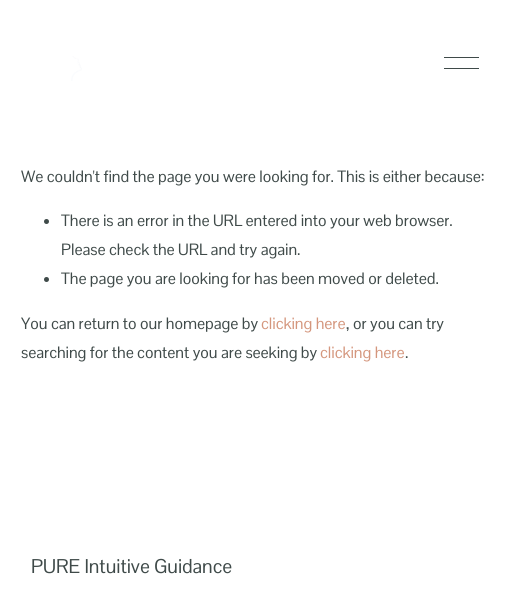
#include <cairo.h>
#include <math.h>
#include <stddef.h>


static void picture(cairo_t *cr, const char *path, double x, double y, double w, double h) {
    cairo_surface_t *image = cairo_image_surface_create_from_png(path);
    cairo_save(cr);
    cairo_set_source_surface(cr, image, x, y);
    cairo_rectangle(cr, x, y, w, h);
    cairo_fill(cr);
    cairo_restore(cr);
    cairo_surface_destroy(image);
}

int main(void) {
    cairo_surface_t *surface = cairo_image_surface_create(CAIRO_FORMAT_RGB24, 516, 592);
    cairo_t *cr = cairo_create(surface);
    cairo_font_options_t *options = cairo_font_options_create();
    cairo_font_options_set_hint_metrics(options, CAIRO_HINT_METRICS_OFF);
    cairo_font_options_set_hint_style(options, CAIRO_HINT_STYLE_NONE);
    cairo_set_font_options(cr, options);
    cairo_set_miter_limit(cr, 4);
    cairo_set_source_rgb(cr, 1, 1, 1);
    cairo_paint(cr);
    picture(cr, "img1.png", 71, 56, 11, 25);
    cairo_set_source_rgb(cr, 0.247, 0.29, 0.286);
    cairo_rectangle(cr, 444, 57, 35, 1);
    cairo_fill(cr);
    cairo_rectangle(cr, 444, 68, 35, 1);
    cairo_fill(cr);
    cairo_select_font_face(cr, "Pontano Sans", CAIRO_FONT_SLANT_NORMAL, CAIRO_FONT_WEIGHT_NORMAL);
    cairo_set_font_size(cr, 16);
    cairo_move_to(cr, 21, 182);
    cairo_show_text(cr, "We couldn't find the page you were looking for. This is either because:");
    cairo_new_path(cr);
    cairo_arc(cr, 46.5, 221.5, 2.5, 0, 2 * M_PI);
    cairo_fill(cr);
    cairo_move_to(cr, 61, 226);
    cairo_show_text(cr, "There is an error in the URL entered into your web browser.");
    cairo_move_to(cr, 61, 255);
    cairo_show_text(cr, "Please check the URL and try again.");
    cairo_new_path(cr);
    cairo_arc(cr, 46.5, 279.5, 2.5, 0, 2 * M_PI);
    cairo_fill(cr);
    cairo_move_to(cr, 61, 284);
    cairo_show_text(cr, "The page you are looking for has been moved or deleted.");
    cairo_move_to(cr, 21, 329);
    cairo_show_text(cr, "You can return to our homepage by");
    cairo_set_source_rgb(cr, 0.831, 0.588, 0.49);
    cairo_move_to(cr, 261, 329);
    cairo_show_text(cr, "clicking here");
    cairo_set_source_rgb(cr, 0.247, 0.29, 0.286);
    cairo_move_to(cr, 346, 329);
    cairo_show_text(cr, ", or you can try");
    cairo_move_to(cr, 21, 358);
    cairo_show_text(cr, "searching for the content you are seeking by");
    cairo_set_source_rgb(cr, 0.831, 0.588, 0.49);
    cairo_move_to(cr, 320, 358);
    cairo_show_text(cr, "clicking here");
    cairo_set_source_rgb(cr, 0.247, 0.29, 0.286);
    cairo_move_to(cr, 405, 358);
    cairo_show_text(cr, ".");
    cairo_set_font_size(cr, 19.5);
    cairo_move_to(cr, 31, 573);
    cairo_show_text(cr, "PURE Intuitive Guidance");
    cairo_surface_write_to_png(surface, "page.png");
    cairo_font_options_destroy(options);
    cairo_destroy(cr);
    cairo_surface_destroy(surface);
    return 0;
}
